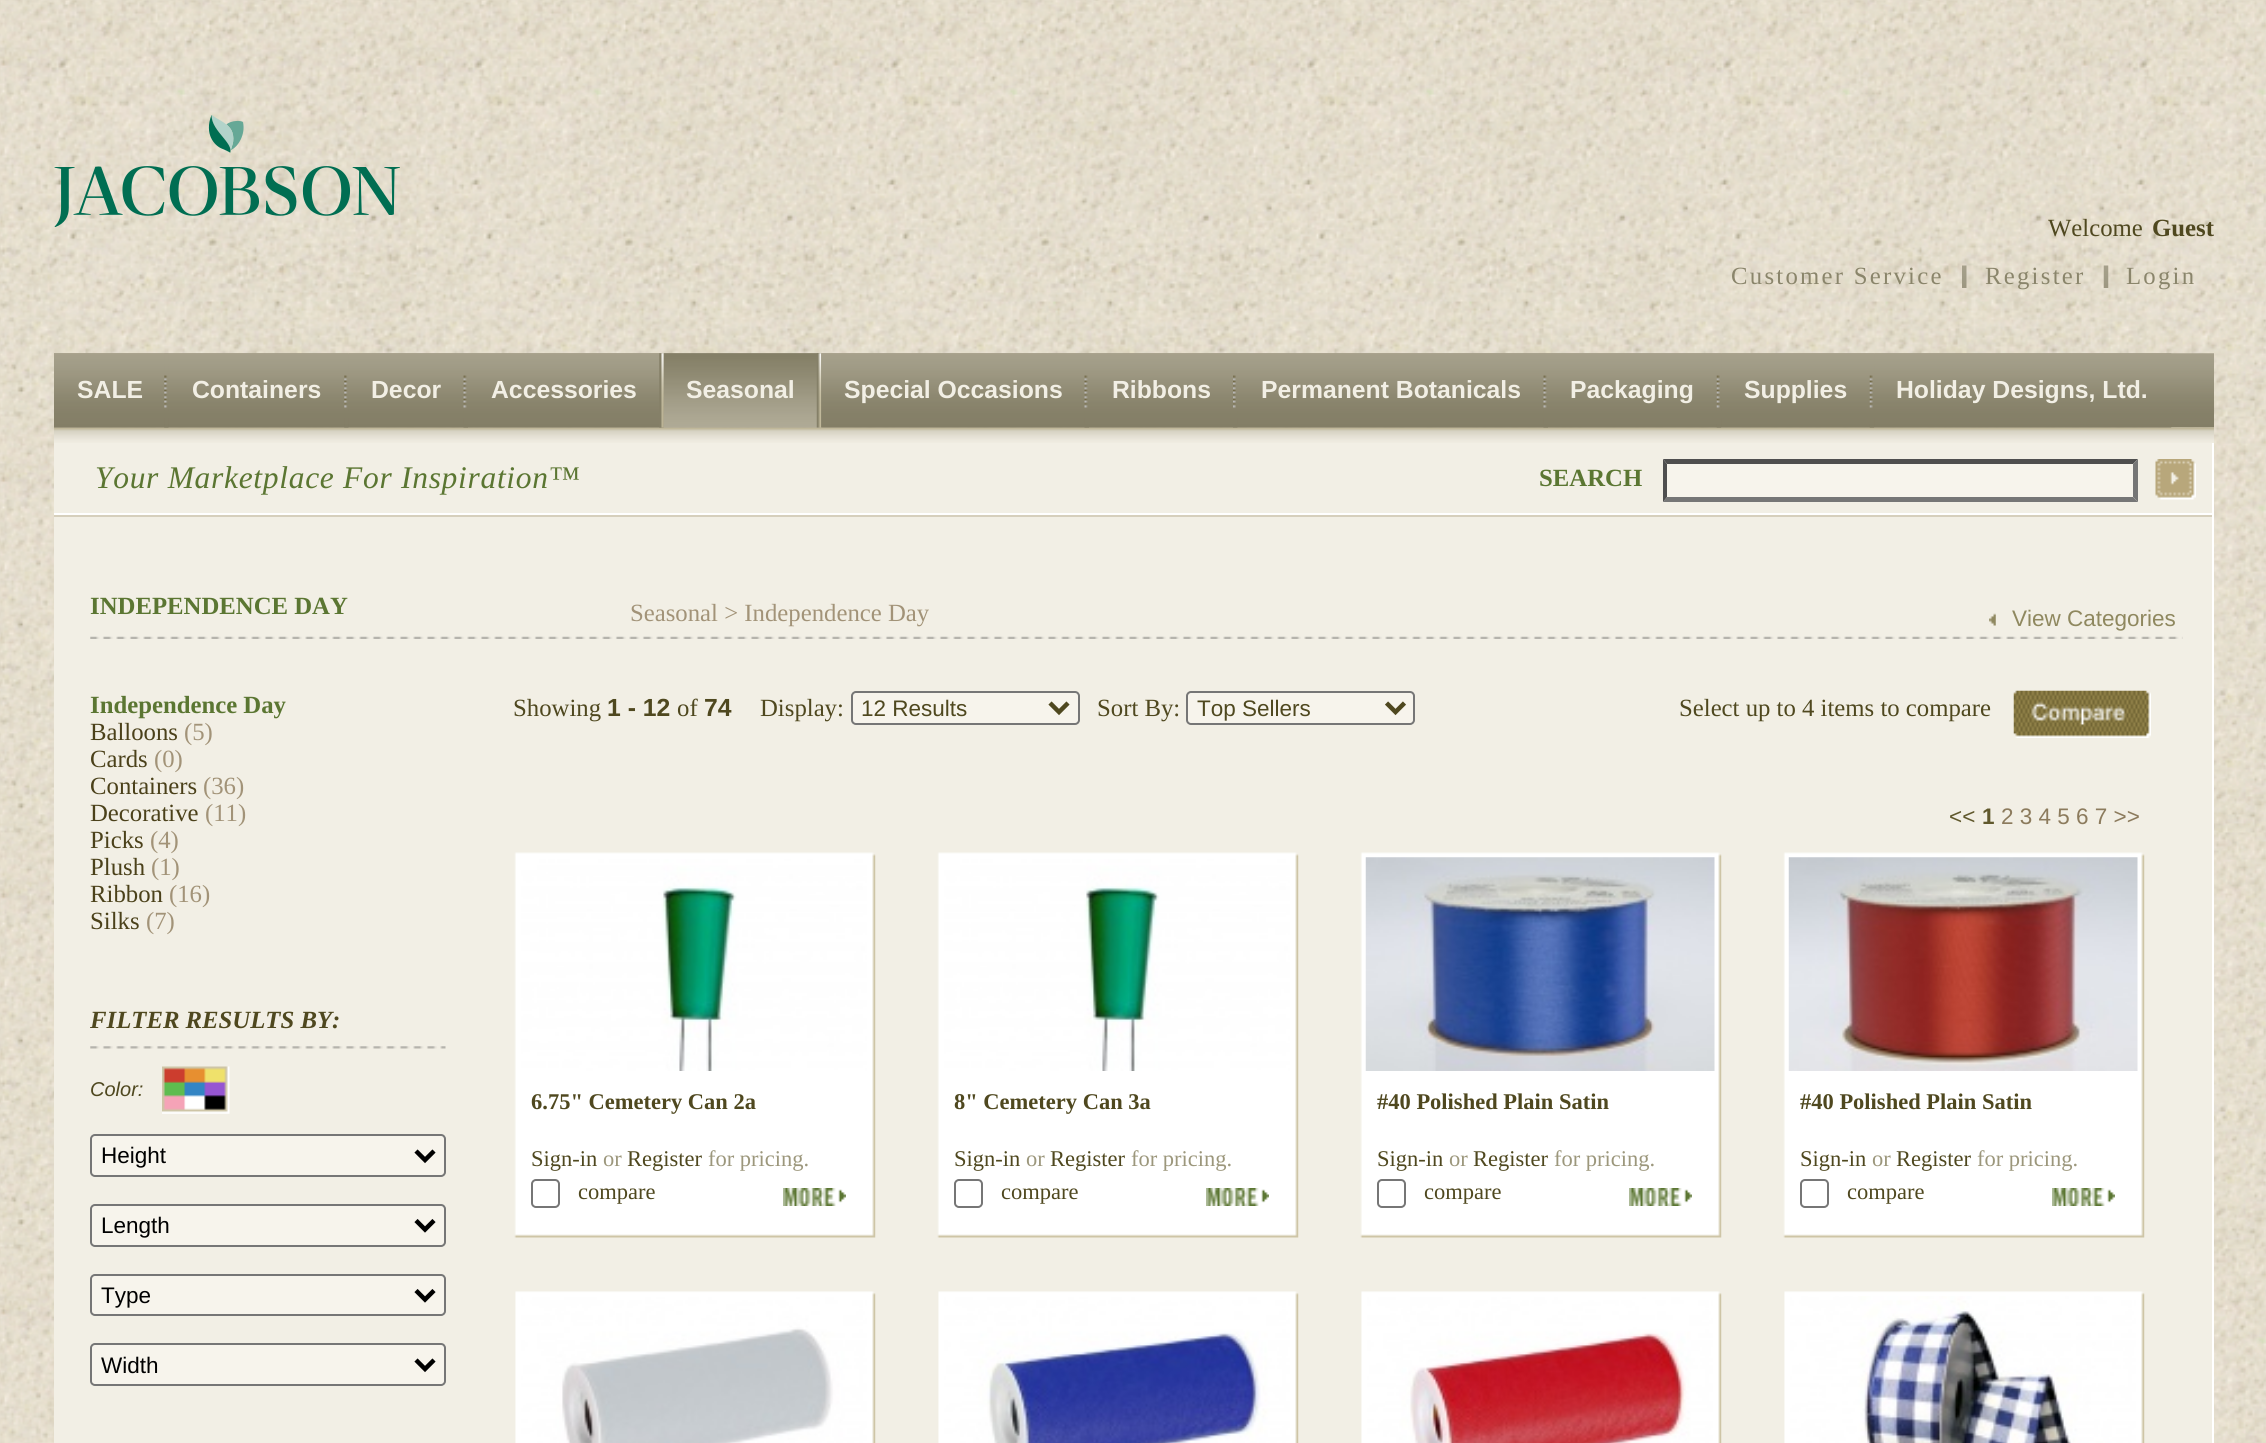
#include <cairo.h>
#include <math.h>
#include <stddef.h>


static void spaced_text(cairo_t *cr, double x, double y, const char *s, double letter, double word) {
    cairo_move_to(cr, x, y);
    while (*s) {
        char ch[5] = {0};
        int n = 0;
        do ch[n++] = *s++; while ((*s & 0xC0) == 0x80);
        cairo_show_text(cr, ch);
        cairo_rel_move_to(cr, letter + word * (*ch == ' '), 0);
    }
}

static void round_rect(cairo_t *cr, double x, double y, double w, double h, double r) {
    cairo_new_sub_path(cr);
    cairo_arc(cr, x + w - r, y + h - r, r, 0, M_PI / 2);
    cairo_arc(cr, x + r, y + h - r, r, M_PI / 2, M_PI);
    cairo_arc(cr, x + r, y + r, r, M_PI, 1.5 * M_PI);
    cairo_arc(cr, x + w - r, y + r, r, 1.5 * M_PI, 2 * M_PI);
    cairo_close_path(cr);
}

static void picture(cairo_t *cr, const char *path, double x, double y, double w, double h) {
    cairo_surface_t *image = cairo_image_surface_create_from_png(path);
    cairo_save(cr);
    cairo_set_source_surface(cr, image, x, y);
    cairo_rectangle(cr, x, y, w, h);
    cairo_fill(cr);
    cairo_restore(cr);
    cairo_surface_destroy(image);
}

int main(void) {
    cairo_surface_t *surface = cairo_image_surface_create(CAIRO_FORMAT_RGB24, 2266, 1443);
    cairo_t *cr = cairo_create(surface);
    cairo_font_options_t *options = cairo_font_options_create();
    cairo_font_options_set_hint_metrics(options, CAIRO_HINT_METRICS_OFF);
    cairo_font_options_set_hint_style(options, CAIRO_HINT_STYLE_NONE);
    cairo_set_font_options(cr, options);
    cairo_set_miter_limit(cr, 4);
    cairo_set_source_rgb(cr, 1, 1, 1);
    cairo_paint(cr);
    picture(cr, "img1.png", 0, 0, 2266, 1443);
    picture(cr, "img2.png", 54, 115, 346, 112);
    cairo_select_font_face(cr, "Liberation Serif", CAIRO_FONT_SLANT_NORMAL, CAIRO_FONT_WEIGHT_NORMAL);
    cairo_set_font_size(cr, 24.75);
    cairo_set_source_rgb(cr, 0.31, 0.282, 0.122);
    cairo_move_to(cr, 2048, 236);
    cairo_show_text(cr, "Welcome");
    cairo_select_font_face(cr, "Liberation Serif", CAIRO_FONT_SLANT_NORMAL, CAIRO_FONT_WEIGHT_BOLD);
    cairo_move_to(cr, 2152, 236);
    cairo_show_text(cr, "Guest");
    cairo_select_font_face(cr, "Liberation Serif", CAIRO_FONT_SLANT_NORMAL, CAIRO_FONT_WEIGHT_NORMAL);
    cairo_set_source_rgb(cr, 0.541, 0.522, 0.42);
    spaced_text(cr, 1731, 284, "Customer Service", 2.25, 0);
    picture(cr, "img3.png", 1962, 265, 5, 23);
    spaced_text(cr, 1985, 284, "Register", 2.25, 0);
    picture(cr, "img4.png", 2103, 265, 6, 23);
    spaced_text(cr, 2126, 284, "Login", 2.25, 0);
    picture(cr, "img5.png", 54, 353, 2160, 75);
    picture(cr, "img27.png", 54, 427, 2160, 16);
    picture(cr, "img6.png", 54, 353, 115, 75);
    cairo_select_font_face(cr, "Liberation Sans", CAIRO_FONT_SLANT_NORMAL, CAIRO_FONT_WEIGHT_BOLD);
    cairo_set_source_rgb(cr, 0.949, 0.937, 0.898);
    cairo_move_to(cr, 77, 398);
    cairo_show_text(cr, "SALE");
    picture(cr, "img7.png", 164, 353, 5, 75);
    picture(cr, "img8.png", 169, 353, 180, 75);
    cairo_move_to(cr, 192, 398);
    cairo_show_text(cr, "Containers");
    picture(cr, "img9.png", 344, 375, 5, 53);
    picture(cr, "img10.png", 349, 353, 119, 75);
    cairo_move_to(cr, 371, 398);
    cairo_show_text(cr, "Decor");
    picture(cr, "img11.png", 463, 375, 5, 53);
    picture(cr, "img12.png", 468, 353, 196, 75);
    cairo_move_to(cr, 491, 398);
    cairo_show_text(cr, "Accessories");
    picture(cr, "img13.png", 659, 353, 5, 75);
    picture(cr, "img14.png", 663, 353, 159, 75);
    cairo_move_to(cr, 686, 398);
    cairo_show_text(cr, "Seasonal");
    picture(cr, "img15.png", 816, 353, 6, 75);
    picture(cr, "img16.png", 821, 353, 268, 75);
    cairo_move_to(cr, 844, 398);
    cairo_show_text(cr, "Special Occasions");
    picture(cr, "img17.png", 1084, 375, 5, 53);
    picture(cr, "img18.png", 1089, 353, 149, 75);
    cairo_move_to(cr, 1112, 398);
    cairo_show_text(cr, "Ribbons");
    picture(cr, "img19.png", 1233, 375, 5, 53);
    picture(cr, "img20.png", 1237, 353, 311, 75);
    cairo_move_to(cr, 1261, 398);
    cairo_show_text(cr, "Permanent Botanicals");
    picture(cr, "img21.png", 1543, 375, 5, 53);
    picture(cr, "img22.png", 1548, 353, 174, 75);
    cairo_move_to(cr, 1570, 398);
    cairo_show_text(cr, "Packaging");
    picture(cr, "img23.png", 1716, 375, 6, 53);
    picture(cr, "img24.png", 1721, 353, 154, 75);
    cairo_move_to(cr, 1744, 398);
    cairo_show_text(cr, "Supplies");
    picture(cr, "img25.png", 1869, 375, 6, 53);
    picture(cr, "img26.png", 1874, 353, 298, 75);
    cairo_move_to(cr, 1896, 398);
    cairo_show_text(cr, "Holiday Designs, Ltd.");
    cairo_rectangle(cr, 54, 443, 2158, 1000);
    cairo_fill(cr);
    cairo_set_source_rgb(cr, 1, 1, 1);
    cairo_rectangle(cr, 2212, 443, 2, 1000);
    cairo_fill(cr);
    cairo_rectangle(cr, 54, 513, 2158, 2);
    cairo_fill(cr);
    cairo_select_font_face(cr, "Liberation Serif", CAIRO_FONT_SLANT_ITALIC, CAIRO_FONT_WEIGHT_NORMAL);
    cairo_set_font_size(cr, 31.5);
    cairo_set_source_rgb(cr, 0.357, 0.463, 0.196);
    spaced_text(cr, 95, 488, "Your Marketplace For Inspiration™", 0.7, 0);
    cairo_select_font_face(cr, "Liberation Serif", CAIRO_FONT_SLANT_NORMAL, CAIRO_FONT_WEIGHT_BOLD);
    cairo_set_font_size(cr, 24.75);
    cairo_move_to(cr, 1539, 486);
    cairo_show_text(cr, "SEARCH");
    cairo_set_source_rgb(cr, 0.965, 0.957, 0.925);
    cairo_rectangle(cr, 1663, 459, 475, 43);
    cairo_fill(cr);
    cairo_set_source_rgb(cr, 0.31, 0.31, 0.31);
    cairo_new_path(cr);
    cairo_move_to(cr, 1663, 459);
    cairo_line_to(cr, 2138, 459);
    cairo_line_to(cr, 2133, 464);
    cairo_line_to(cr, 1667, 464);
    cairo_close_path(cr);
    cairo_fill(cr);
    cairo_set_source_rgb(cr, 0.463, 0.463, 0.463);
    cairo_new_path(cr);
    cairo_move_to(cr, 2138, 459);
    cairo_line_to(cr, 2138, 502);
    cairo_line_to(cr, 2133, 497);
    cairo_line_to(cr, 2133, 464);
    cairo_close_path(cr);
    cairo_fill(cr);
    cairo_new_path(cr);
    cairo_move_to(cr, 2138, 502);
    cairo_line_to(cr, 1663, 502);
    cairo_line_to(cr, 1667, 497);
    cairo_line_to(cr, 2133, 497);
    cairo_close_path(cr);
    cairo_fill(cr);
    cairo_set_source_rgb(cr, 0.31, 0.31, 0.31);
    cairo_new_path(cr);
    cairo_move_to(cr, 1663, 502);
    cairo_line_to(cr, 1663, 459);
    cairo_line_to(cr, 1667, 464);
    cairo_line_to(cr, 1667, 497);
    cairo_close_path(cr);
    cairo_fill(cr);
    picture(cr, "img28.png", 2155, 459, 41, 41);
    cairo_set_source_rgb(cr, 0.839, 0.812, 0.737);
    cairo_rectangle(cr, 54, 515, 2158, 2);
    cairo_fill(cr);
    picture(cr, "img29.png", 90, 636, 2093, 3);
    cairo_set_source_rgb(cr, 0.357, 0.463, 0.196);
    cairo_move_to(cr, 90, 614);
    cairo_show_text(cr, "INDEPENDENCE DAY");
    cairo_select_font_face(cr, "Liberation Serif", CAIRO_FONT_SLANT_NORMAL, CAIRO_FONT_WEIGHT_NORMAL);
    cairo_set_source_rgb(cr, 0.635, 0.576, 0.471);
    cairo_move_to(cr, 630, 621);
    cairo_show_text(cr, "Seasonal > Independence Day");
    picture(cr, "img30.png", 1989, 613, 7, 13);
    cairo_select_font_face(cr, "Liberation Sans", CAIRO_FONT_SLANT_NORMAL, CAIRO_FONT_WEIGHT_NORMAL);
    cairo_set_font_size(cr, 22.5);
    cairo_set_source_rgb(cr, 0.561, 0.533, 0.373);
    cairo_move_to(cr, 2012, 626);
    cairo_show_text(cr, "View Categories");
    cairo_select_font_face(cr, "Liberation Serif", CAIRO_FONT_SLANT_NORMAL, CAIRO_FONT_WEIGHT_BOLD);
    cairo_set_font_size(cr, 24.75);
    cairo_set_source_rgb(cr, 0.357, 0.463, 0.196);
    cairo_move_to(cr, 90, 713);
    cairo_show_text(cr, "Independence Day");
    cairo_select_font_face(cr, "Liberation Serif", CAIRO_FONT_SLANT_NORMAL, CAIRO_FONT_WEIGHT_NORMAL);
    cairo_set_source_rgb(cr, 0.294, 0.255, 0.102);
    cairo_move_to(cr, 90, 740);
    cairo_show_text(cr, "Balloons");
    cairo_set_source_rgb(cr, 0.635, 0.576, 0.471);
    cairo_move_to(cr, 184, 740);
    cairo_show_text(cr, "(5)");
    cairo_set_source_rgb(cr, 0.294, 0.255, 0.102);
    cairo_move_to(cr, 90, 767);
    cairo_show_text(cr, "Cards");
    cairo_set_source_rgb(cr, 0.635, 0.576, 0.471);
    cairo_move_to(cr, 154, 767);
    cairo_show_text(cr, "(0)");
    cairo_set_source_rgb(cr, 0.294, 0.255, 0.102);
    cairo_move_to(cr, 90, 794);
    cairo_show_text(cr, "Containers");
    cairo_set_source_rgb(cr, 0.635, 0.576, 0.471);
    cairo_move_to(cr, 203, 794);
    cairo_show_text(cr, "(36)");
    cairo_set_source_rgb(cr, 0.294, 0.255, 0.102);
    cairo_move_to(cr, 90, 821);
    cairo_show_text(cr, "Decorative");
    cairo_set_source_rgb(cr, 0.635, 0.576, 0.471);
    cairo_move_to(cr, 205, 821);
    cairo_show_text(cr, "(11)");
    cairo_set_source_rgb(cr, 0.294, 0.255, 0.102);
    cairo_move_to(cr, 90, 848);
    cairo_show_text(cr, "Picks");
    cairo_set_source_rgb(cr, 0.635, 0.576, 0.471);
    cairo_move_to(cr, 150, 848);
    cairo_show_text(cr, "(4)");
    cairo_set_source_rgb(cr, 0.294, 0.255, 0.102);
    cairo_move_to(cr, 90, 875);
    cairo_show_text(cr, "Plush");
    cairo_set_source_rgb(cr, 0.635, 0.576, 0.471);
    cairo_move_to(cr, 151, 875);
    cairo_show_text(cr, "(1)");
    cairo_set_source_rgb(cr, 0.294, 0.255, 0.102);
    cairo_move_to(cr, 90, 902);
    cairo_show_text(cr, "Ribbon");
    cairo_set_source_rgb(cr, 0.635, 0.576, 0.471);
    cairo_move_to(cr, 169, 902);
    cairo_show_text(cr, "(16)");
    cairo_set_source_rgb(cr, 0.294, 0.255, 0.102);
    cairo_move_to(cr, 90, 929);
    cairo_show_text(cr, "Silks");
    cairo_set_source_rgb(cr, 0.635, 0.576, 0.471);
    cairo_move_to(cr, 146, 929);
    cairo_show_text(cr, "(7)");
    picture(cr, "img31.png", 90, 1046, 356, 3);
    cairo_select_font_face(cr, "Liberation Serif", CAIRO_FONT_SLANT_ITALIC, CAIRO_FONT_WEIGHT_BOLD);
    cairo_set_source_rgb(cr, 0.31, 0.282, 0.122);
    cairo_move_to(cr, 90, 1028);
    cairo_show_text(cr, "FILTER RESULTS BY:");
    picture(cr, "img32.png", 162, 1066, 68, 48);
    cairo_select_font_face(cr, "Liberation Sans", CAIRO_FONT_SLANT_ITALIC, CAIRO_FONT_WEIGHT_NORMAL);
    cairo_set_font_size(cr, 20);
    cairo_move_to(cr, 90, 1096);
    cairo_show_text(cr, "Color:");
    cairo_set_source_rgb(cr, 0.965, 0.957, 0.925);
    round_rect(cr, 91, 1135, 354, 41, 4);
    cairo_fill_preserve(cr);
    cairo_set_source_rgb(cr, 0.463, 0.463, 0.463);
    cairo_stroke(cr);
    cairo_new_path(cr);
    cairo_move_to(cr, 416, 1151);
    cairo_line_to(cr, 425, 1160);
    cairo_line_to(cr, 434, 1151);
    cairo_set_source_rgb(cr, 0, 0, 0);
    cairo_set_line_width(cr, 4.5);
    cairo_stroke(cr);
    cairo_select_font_face(cr, "Liberation Sans", CAIRO_FONT_SLANT_NORMAL, CAIRO_FONT_WEIGHT_NORMAL);
    cairo_set_font_size(cr, 22.5);
    cairo_move_to(cr, 101, 1163);
    cairo_show_text(cr, "Height");
    cairo_set_source_rgb(cr, 0.965, 0.957, 0.925);
    round_rect(cr, 91, 1205, 354, 41, 4);
    cairo_fill_preserve(cr);
    cairo_set_source_rgb(cr, 0.463, 0.463, 0.463);
    cairo_set_line_width(cr, 2);
    cairo_stroke(cr);
    cairo_new_path(cr);
    cairo_move_to(cr, 416, 1220.5);
    cairo_line_to(cr, 425, 1229.5);
    cairo_line_to(cr, 434, 1220.5);
    cairo_set_source_rgb(cr, 0, 0, 0);
    cairo_set_line_width(cr, 4.5);
    cairo_stroke(cr);
    cairo_move_to(cr, 101, 1233);
    cairo_show_text(cr, "Length");
    cairo_set_source_rgb(cr, 0.965, 0.957, 0.925);
    round_rect(cr, 91, 1275, 354, 40, 4);
    cairo_fill_preserve(cr);
    cairo_set_source_rgb(cr, 0.463, 0.463, 0.463);
    cairo_set_line_width(cr, 2);
    cairo_stroke(cr);
    cairo_new_path(cr);
    cairo_move_to(cr, 416, 1290.5);
    cairo_line_to(cr, 425, 1299.5);
    cairo_line_to(cr, 434, 1290.5);
    cairo_set_source_rgb(cr, 0, 0, 0);
    cairo_set_line_width(cr, 4.5);
    cairo_stroke(cr);
    cairo_move_to(cr, 101, 1303);
    cairo_show_text(cr, "Type");
    cairo_set_source_rgb(cr, 0.965, 0.957, 0.925);
    round_rect(cr, 91, 1344, 354, 41, 4);
    cairo_fill_preserve(cr);
    cairo_set_source_rgb(cr, 0.463, 0.463, 0.463);
    cairo_set_line_width(cr, 2);
    cairo_stroke(cr);
    cairo_new_path(cr);
    cairo_move_to(cr, 416, 1360);
    cairo_line_to(cr, 425, 1369);
    cairo_line_to(cr, 434, 1360);
    cairo_set_source_rgb(cr, 0, 0, 0);
    cairo_set_line_width(cr, 4.5);
    cairo_stroke(cr);
    cairo_move_to(cr, 101, 1373);
    cairo_show_text(cr, "Width");
    cairo_select_font_face(cr, "Liberation Serif", CAIRO_FONT_SLANT_NORMAL, CAIRO_FONT_WEIGHT_NORMAL);
    cairo_set_font_size(cr, 24.75);
    cairo_set_source_rgb(cr, 0.31, 0.282, 0.122);
    cairo_move_to(cr, 513, 716);
    cairo_show_text(cr, "Showing");
    cairo_select_font_face(cr, "Liberation Sans", CAIRO_FONT_SLANT_NORMAL, CAIRO_FONT_WEIGHT_BOLD);
    cairo_move_to(cr, 607, 716);
    cairo_show_text(cr, "1 - 12");
    cairo_select_font_face(cr, "Liberation Serif", CAIRO_FONT_SLANT_NORMAL, CAIRO_FONT_WEIGHT_NORMAL);
    cairo_move_to(cr, 677, 716);
    cairo_show_text(cr, "of");
    cairo_select_font_face(cr, "Liberation Sans", CAIRO_FONT_SLANT_NORMAL, CAIRO_FONT_WEIGHT_BOLD);
    cairo_move_to(cr, 704, 716);
    cairo_show_text(cr, "74");
    cairo_select_font_face(cr, "Liberation Serif", CAIRO_FONT_SLANT_NORMAL, CAIRO_FONT_WEIGHT_NORMAL);
    cairo_move_to(cr, 760, 716);
    cairo_show_text(cr, "Display:");
    cairo_set_source_rgb(cr, 0.965, 0.957, 0.925);
    round_rect(cr, 852, 692, 227, 32, 4);
    cairo_fill_preserve(cr);
    cairo_set_source_rgb(cr, 0.463, 0.463, 0.463);
    cairo_set_line_width(cr, 2);
    cairo_stroke(cr);
    cairo_new_path(cr);
    cairo_move_to(cr, 1050, 703);
    cairo_line_to(cr, 1059, 712);
    cairo_line_to(cr, 1068, 703);
    cairo_set_source_rgb(cr, 0.31, 0.282, 0.122);
    cairo_set_line_width(cr, 4.5);
    cairo_stroke(cr);
    cairo_select_font_face(cr, "Liberation Sans", CAIRO_FONT_SLANT_NORMAL, CAIRO_FONT_WEIGHT_NORMAL);
    cairo_set_font_size(cr, 22.5);
    cairo_move_to(cr, 861, 716);
    cairo_show_text(cr, "12 Results");
    cairo_select_font_face(cr, "Liberation Serif", CAIRO_FONT_SLANT_NORMAL, CAIRO_FONT_WEIGHT_NORMAL);
    cairo_set_font_size(cr, 24.75);
    cairo_move_to(cr, 1097, 716);
    cairo_show_text(cr, "Sort By:");
    cairo_set_source_rgb(cr, 0.965, 0.957, 0.925);
    round_rect(cr, 1187, 692, 227, 32, 4);
    cairo_fill_preserve(cr);
    cairo_set_source_rgb(cr, 0.463, 0.463, 0.463);
    cairo_set_line_width(cr, 2);
    cairo_stroke(cr);
    cairo_new_path(cr);
    cairo_move_to(cr, 1386.5, 703);
    cairo_line_to(cr, 1395.5, 712);
    cairo_line_to(cr, 1404.5, 703);
    cairo_set_source_rgb(cr, 0.31, 0.282, 0.122);
    cairo_set_line_width(cr, 4.5);
    cairo_stroke(cr);
    cairo_select_font_face(cr, "Liberation Sans", CAIRO_FONT_SLANT_NORMAL, CAIRO_FONT_WEIGHT_NORMAL);
    cairo_set_font_size(cr, 22.5);
    cairo_move_to(cr, 1197, 716);
    cairo_show_text(cr, "Top Sellers");
    cairo_select_font_face(cr, "Liberation Serif", CAIRO_FONT_SLANT_NORMAL, CAIRO_FONT_WEIGHT_NORMAL);
    cairo_set_font_size(cr, 24.75);
    cairo_move_to(cr, 1679, 716);
    cairo_show_text(cr, "Select up to 4 items to compare");
    picture(cr, "img33.png", 2013, 690, 138, 48);
    cairo_select_font_face(cr, "Liberation Sans", CAIRO_FONT_SLANT_NORMAL, CAIRO_FONT_WEIGHT_NORMAL);
    cairo_set_font_size(cr, 22.5);
    cairo_set_source_rgb(cr, 0.376, 0.345, 0.173);
    cairo_move_to(cr, 1949, 824);
    cairo_show_text(cr, "<<");
    cairo_select_font_face(cr, "Liberation Sans", CAIRO_FONT_SLANT_NORMAL, CAIRO_FONT_WEIGHT_BOLD);
    cairo_move_to(cr, 1982, 824);
    cairo_show_text(cr, "1");
    cairo_select_font_face(cr, "Liberation Sans", CAIRO_FONT_SLANT_NORMAL, CAIRO_FONT_WEIGHT_NORMAL);
    cairo_set_source_rgb(cr, 0.549, 0.482, 0.365);
    cairo_move_to(cr, 2001, 824);
    cairo_show_text(cr, "2 3 4 5 6 7 >>");
    picture(cr, "img34.png", 514, 852, 362, 386);
    picture(cr, "img35.png", 521, 859, 346, 212);
    cairo_select_font_face(cr, "Liberation Serif", CAIRO_FONT_SLANT_NORMAL, CAIRO_FONT_WEIGHT_BOLD);
    cairo_set_source_rgb(cr, 0.31, 0.282, 0.122);
    cairo_move_to(cr, 531, 1109);
    cairo_show_text(cr, "6.75\" Cemetery Can 2a");
    cairo_select_font_face(cr, "Liberation Serif", CAIRO_FONT_SLANT_NORMAL, CAIRO_FONT_WEIGHT_NORMAL);
    cairo_move_to(cr, 531, 1166);
    cairo_show_text(cr, "Sign-in");
    cairo_set_source_rgb(cr, 0.612, 0.592, 0.486);
    cairo_move_to(cr, 603, 1166);
    cairo_show_text(cr, "or");
    cairo_set_source_rgb(cr, 0.31, 0.282, 0.122);
    cairo_move_to(cr, 627, 1166);
    cairo_show_text(cr, "Register");
    cairo_set_source_rgb(cr, 0.612, 0.592, 0.486);
    cairo_move_to(cr, 708, 1166);
    cairo_show_text(cr, "for pricing.");
    round_rect(cr, 532, 1180, 27, 27, 4);
    cairo_set_source_rgb(cr, 0.463, 0.463, 0.463);
    cairo_set_line_width(cr, 2);
    cairo_stroke(cr);
    cairo_set_source_rgb(cr, 0.31, 0.282, 0.122);
    cairo_move_to(cr, 578, 1199);
    cairo_show_text(cr, "compare");
    picture(cr, "img36.png", 783, 1188, 63, 18);
    picture(cr, "img34.png", 937, 852, 362, 386);
    picture(cr, "img35.png", 944, 859, 346, 212);
    cairo_select_font_face(cr, "Liberation Serif", CAIRO_FONT_SLANT_NORMAL, CAIRO_FONT_WEIGHT_BOLD);
    cairo_move_to(cr, 954, 1109);
    cairo_show_text(cr, "8\" Cemetery Can 3a");
    cairo_select_font_face(cr, "Liberation Serif", CAIRO_FONT_SLANT_NORMAL, CAIRO_FONT_WEIGHT_NORMAL);
    cairo_move_to(cr, 954, 1166);
    cairo_show_text(cr, "Sign-in");
    cairo_set_source_rgb(cr, 0.612, 0.592, 0.486);
    cairo_move_to(cr, 1026, 1166);
    cairo_show_text(cr, "or");
    cairo_set_source_rgb(cr, 0.31, 0.282, 0.122);
    cairo_move_to(cr, 1050, 1166);
    cairo_show_text(cr, "Register");
    cairo_set_source_rgb(cr, 0.612, 0.592, 0.486);
    cairo_move_to(cr, 1131, 1166);
    cairo_show_text(cr, "for pricing.");
    round_rect(cr, 955, 1180, 27, 27, 4);
    cairo_set_source_rgb(cr, 0.463, 0.463, 0.463);
    cairo_stroke(cr);
    cairo_set_source_rgb(cr, 0.31, 0.282, 0.122);
    cairo_move_to(cr, 1001, 1199);
    cairo_show_text(cr, "compare");
    picture(cr, "img37.png", 1206, 1188, 63, 18);
    picture(cr, "img34.png", 1360, 852, 362, 386);
    picture(cr, "img38.png", 1365, 857, 350, 214);
    cairo_select_font_face(cr, "Liberation Serif", CAIRO_FONT_SLANT_NORMAL, CAIRO_FONT_WEIGHT_BOLD);
    cairo_move_to(cr, 1377, 1109);
    cairo_show_text(cr, "#40 Polished Plain Satin");
    cairo_select_font_face(cr, "Liberation Serif", CAIRO_FONT_SLANT_NORMAL, CAIRO_FONT_WEIGHT_NORMAL);
    cairo_move_to(cr, 1377, 1166);
    cairo_show_text(cr, "Sign-in");
    cairo_set_source_rgb(cr, 0.612, 0.592, 0.486);
    cairo_move_to(cr, 1449, 1166);
    cairo_show_text(cr, "or");
    cairo_set_source_rgb(cr, 0.31, 0.282, 0.122);
    cairo_move_to(cr, 1473, 1166);
    cairo_show_text(cr, "Register");
    cairo_set_source_rgb(cr, 0.612, 0.592, 0.486);
    cairo_move_to(cr, 1554, 1166);
    cairo_show_text(cr, "for pricing.");
    round_rect(cr, 1378, 1180, 27, 27, 4);
    cairo_set_source_rgb(cr, 0.463, 0.463, 0.463);
    cairo_stroke(cr);
    cairo_set_source_rgb(cr, 0.31, 0.282, 0.122);
    cairo_move_to(cr, 1424, 1199);
    cairo_show_text(cr, "compare");
    picture(cr, "img37.png", 1629, 1188, 63, 18);
    picture(cr, "img34.png", 1783, 852, 362, 386);
    picture(cr, "img39.png", 1788, 857, 350, 214);
    cairo_select_font_face(cr, "Liberation Serif", CAIRO_FONT_SLANT_NORMAL, CAIRO_FONT_WEIGHT_BOLD);
    cairo_move_to(cr, 1800, 1109);
    cairo_show_text(cr, "#40 Polished Plain Satin");
    cairo_select_font_face(cr, "Liberation Serif", CAIRO_FONT_SLANT_NORMAL, CAIRO_FONT_WEIGHT_NORMAL);
    cairo_move_to(cr, 1800, 1166);
    cairo_show_text(cr, "Sign-in");
    cairo_set_source_rgb(cr, 0.612, 0.592, 0.486);
    cairo_move_to(cr, 1872, 1166);
    cairo_show_text(cr, "or");
    cairo_set_source_rgb(cr, 0.31, 0.282, 0.122);
    cairo_move_to(cr, 1896, 1166);
    cairo_show_text(cr, "Register");
    cairo_set_source_rgb(cr, 0.612, 0.592, 0.486);
    cairo_move_to(cr, 1977, 1166);
    cairo_show_text(cr, "for pricing.");
    round_rect(cr, 1801, 1180, 27, 27, 4);
    cairo_set_source_rgb(cr, 0.463, 0.463, 0.463);
    cairo_stroke(cr);
    cairo_set_source_rgb(cr, 0.31, 0.282, 0.122);
    cairo_move_to(cr, 1847, 1199);
    cairo_show_text(cr, "compare");
    picture(cr, "img36.png", 2052, 1188, 63, 18);
    picture(cr, "img40.png", 515, 1291, 361, 152);
    picture(cr, "img41.png", 521, 1297, 346, 146);
    picture(cr, "img40.png", 938, 1291, 361, 152);
    picture(cr, "img42.png", 944, 1297, 346, 146);
    picture(cr, "img40.png", 1361, 1291, 361, 152);
    picture(cr, "img43.png", 1367, 1297, 346, 146);
    picture(cr, "img40.png", 1784, 1291, 361, 152);
    picture(cr, "img44.png", 1790, 1296, 346, 147);
    cairo_surface_write_to_png(surface, "page.png");
    cairo_font_options_destroy(options);
    cairo_destroy(cr);
    cairo_surface_destroy(surface);
    return 0;
}
